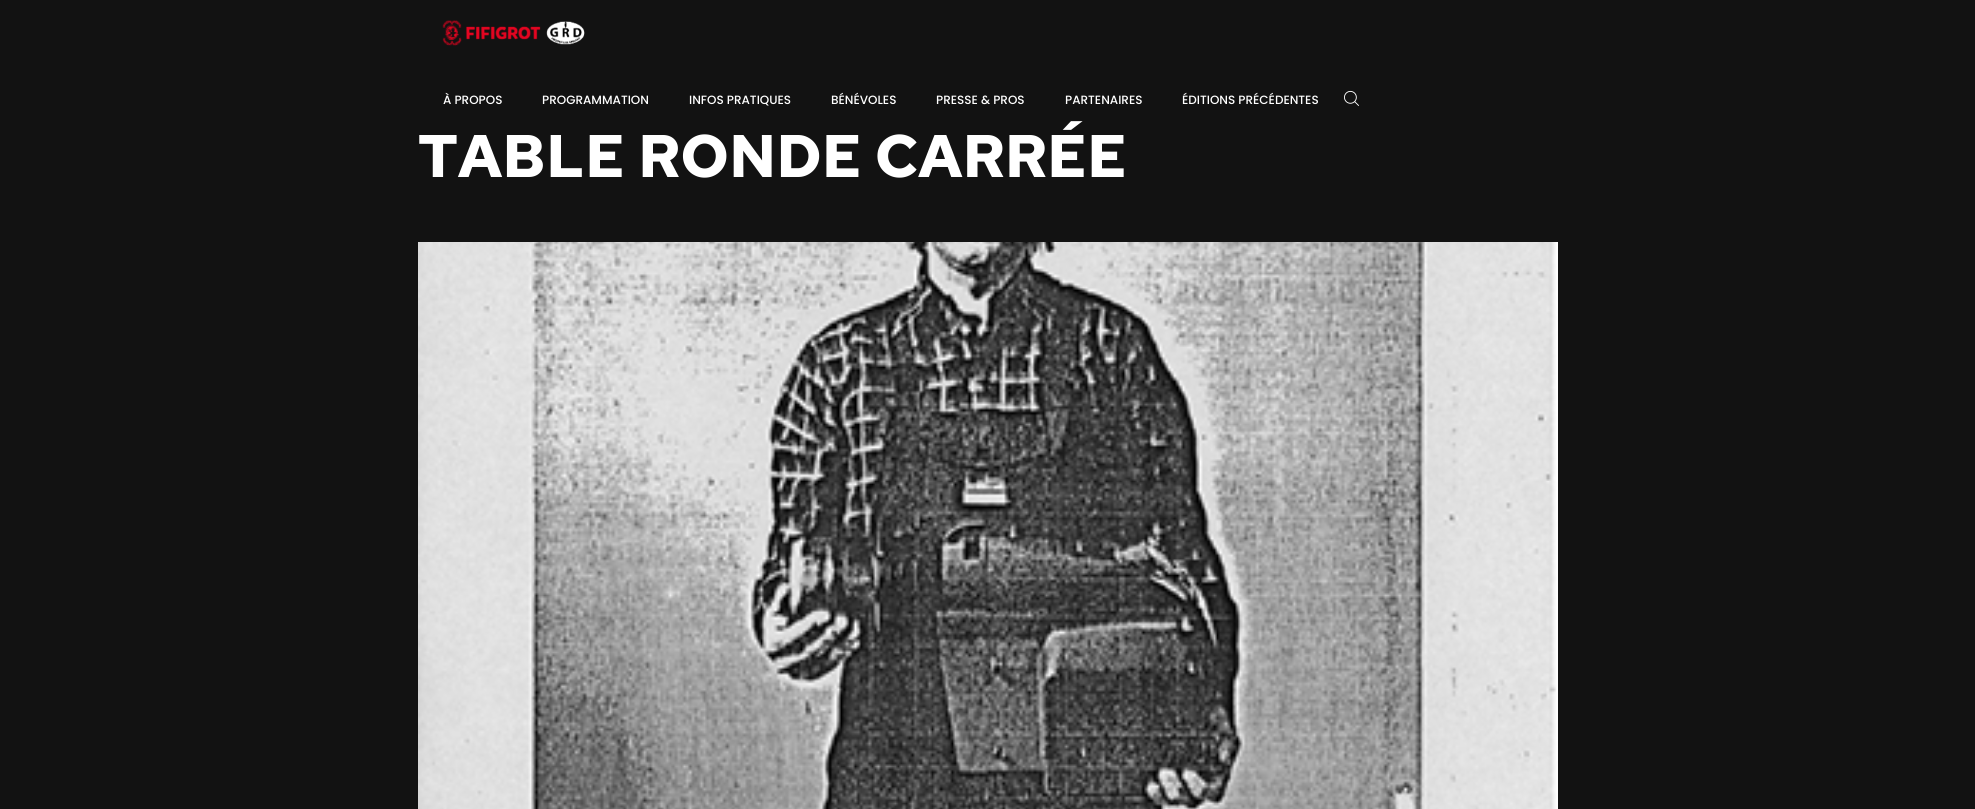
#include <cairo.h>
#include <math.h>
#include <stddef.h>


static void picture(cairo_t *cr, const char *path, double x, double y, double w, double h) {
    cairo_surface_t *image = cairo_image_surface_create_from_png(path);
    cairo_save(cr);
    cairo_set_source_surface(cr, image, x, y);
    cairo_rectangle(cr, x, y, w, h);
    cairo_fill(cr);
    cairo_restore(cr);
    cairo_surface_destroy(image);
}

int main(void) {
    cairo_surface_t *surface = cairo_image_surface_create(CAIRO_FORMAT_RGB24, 1975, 809);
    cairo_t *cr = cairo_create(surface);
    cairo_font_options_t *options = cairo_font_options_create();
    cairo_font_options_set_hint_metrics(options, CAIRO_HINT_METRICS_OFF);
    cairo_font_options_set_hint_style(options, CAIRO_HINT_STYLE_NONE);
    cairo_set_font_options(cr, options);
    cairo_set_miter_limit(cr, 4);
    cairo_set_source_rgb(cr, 0.071, 0.071, 0.071);
    cairo_paint(cr);
    picture(cr, "img1.png", 442, 20, 143, 26);
    cairo_select_font_face(cr, "Poppins Medium", CAIRO_FONT_SLANT_NORMAL, CAIRO_FONT_WEIGHT_NORMAL);
    cairo_set_font_size(cr, 12);
    cairo_set_source_rgb(cr, 1, 1, 1);
    cairo_move_to(cr, 443, 104);
    cairo_show_text(cr, "À PROPOS");
    cairo_move_to(cr, 542, 104);
    cairo_show_text(cr, "PROGRAMMATION");
    cairo_move_to(cr, 689, 104);
    cairo_show_text(cr, "INFOS PRATIQUES");
    cairo_move_to(cr, 831, 104);
    cairo_show_text(cr, "BÉNÉVOLES");
    cairo_move_to(cr, 936, 104);
    cairo_show_text(cr, "PRESSE & PROS");
    cairo_move_to(cr, 1065, 104);
    cairo_show_text(cr, "PARTENAIRES");
    cairo_move_to(cr, 1182, 104);
    cairo_show_text(cr, "ÉDITIONS PRÉCÉDENTES");
    picture(cr, "img2.png", 1344, 90, 15, 16);
    cairo_select_font_face(cr, "Red Hat Text", CAIRO_FONT_SLANT_NORMAL, CAIRO_FONT_WEIGHT_BOLD);
    cairo_set_font_size(cr, 60);
    cairo_move_to(cr, 418, 177);
    cairo_show_text(cr, "TABLE RONDE CARRÉE");
    picture(cr, "img3.png", 418, 242, 1140, 567);
    cairo_surface_write_to_png(surface, "page.png");
    cairo_font_options_destroy(options);
    cairo_destroy(cr);
    cairo_surface_destroy(surface);
    return 0;
}
